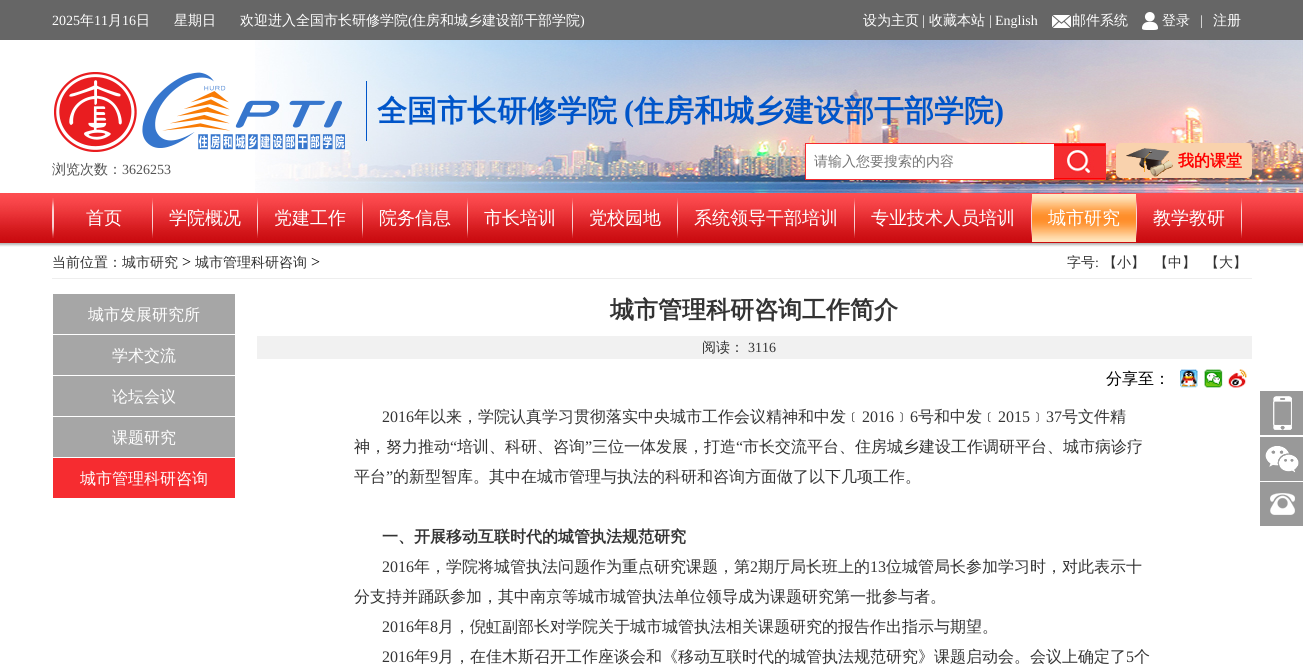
#include <cairo.h>
#include <math.h>
#include <stddef.h>


static void round_rect(cairo_t *cr, double x, double y, double w, double h, double r) {
    cairo_new_sub_path(cr);
    cairo_arc(cr, x + w - r, y + h - r, r, 0, M_PI / 2);
    cairo_arc(cr, x + r, y + h - r, r, M_PI / 2, M_PI);
    cairo_arc(cr, x + r, y + r, r, M_PI, 1.5 * M_PI);
    cairo_arc(cr, x + w - r, y + r, r, 1.5 * M_PI, 2 * M_PI);
    cairo_close_path(cr);
}

static void picture(cairo_t *cr, const char *path, double x, double y, double w, double h) {
    cairo_surface_t *image = cairo_image_surface_create_from_png(path);
    cairo_save(cr);
    cairo_set_source_surface(cr, image, x, y);
    cairo_rectangle(cr, x, y, w, h);
    cairo_fill(cr);
    cairo_restore(cr);
    cairo_surface_destroy(image);
}

int main(void) {
    cairo_surface_t *surface = cairo_image_surface_create(CAIRO_FORMAT_RGB24, 1303, 672);
    cairo_t *cr = cairo_create(surface);
    cairo_font_options_t *options = cairo_font_options_create();
    cairo_font_options_set_hint_metrics(options, CAIRO_HINT_METRICS_OFF);
    cairo_font_options_set_hint_style(options, CAIRO_HINT_STYLE_NONE);
    cairo_set_font_options(cr, options);
    cairo_set_miter_limit(cr, 4);
    cairo_set_source_rgb(cr, 1, 1, 1);
    cairo_paint(cr);
    cairo_set_source_rgb(cr, 0.4, 0.4, 0.4);
    cairo_rectangle(cr, 0, 0, 1303, 40);
    cairo_fill(cr);
    cairo_select_font_face(cr, "Liberation Serif", CAIRO_FONT_SLANT_NORMAL, CAIRO_FONT_WEIGHT_NORMAL);
    cairo_set_font_size(cr, 14);
    cairo_set_source_rgb(cr, 1, 1, 1);
    cairo_move_to(cr, 52, 25);
    cairo_show_text(cr, "2025");
    cairo_select_font_face(cr, "WenQuanYi Zen Hei Medium", CAIRO_FONT_SLANT_NORMAL, CAIRO_FONT_WEIGHT_NORMAL);
    cairo_move_to(cr, 80, 25);
    cairo_show_text(cr, "年");
    cairo_select_font_face(cr, "Liberation Serif", CAIRO_FONT_SLANT_NORMAL, CAIRO_FONT_WEIGHT_NORMAL);
    cairo_move_to(cr, 94, 25);
    cairo_show_text(cr, "11");
    cairo_select_font_face(cr, "WenQuanYi Zen Hei Medium", CAIRO_FONT_SLANT_NORMAL, CAIRO_FONT_WEIGHT_NORMAL);
    cairo_move_to(cr, 108, 25);
    cairo_show_text(cr, "月");
    cairo_select_font_face(cr, "Liberation Serif", CAIRO_FONT_SLANT_NORMAL, CAIRO_FONT_WEIGHT_NORMAL);
    cairo_move_to(cr, 122, 25);
    cairo_show_text(cr, "16");
    cairo_select_font_face(cr, "WenQuanYi Zen Hei Medium", CAIRO_FONT_SLANT_NORMAL, CAIRO_FONT_WEIGHT_NORMAL);
    cairo_move_to(cr, 136, 25);
    cairo_show_text(cr, "日");
    cairo_move_to(cr, 174, 25);
    cairo_show_text(cr, "星期日");
    cairo_move_to(cr, 240, 25);
    cairo_show_text(cr, "欢迎进入全国市长研修学院");
    cairo_select_font_face(cr, "Liberation Serif", CAIRO_FONT_SLANT_NORMAL, CAIRO_FONT_WEIGHT_NORMAL);
    cairo_move_to(cr, 408, 25);
    cairo_show_text(cr, "(");
    cairo_select_font_face(cr, "WenQuanYi Zen Hei Medium", CAIRO_FONT_SLANT_NORMAL, CAIRO_FONT_WEIGHT_NORMAL);
    cairo_move_to(cr, 412, 25);
    cairo_show_text(cr, "住房和城乡建设部干部学院");
    cairo_select_font_face(cr, "Liberation Serif", CAIRO_FONT_SLANT_NORMAL, CAIRO_FONT_WEIGHT_NORMAL);
    cairo_move_to(cr, 580, 25);
    cairo_show_text(cr, ")");
    cairo_select_font_face(cr, "WenQuanYi Zen Hei Medium", CAIRO_FONT_SLANT_NORMAL, CAIRO_FONT_WEIGHT_NORMAL);
    cairo_move_to(cr, 863, 25);
    cairo_show_text(cr, "设为主页");
    cairo_select_font_face(cr, "Liberation Serif", CAIRO_FONT_SLANT_NORMAL, CAIRO_FONT_WEIGHT_NORMAL);
    cairo_move_to(cr, 922, 25);
    cairo_show_text(cr, "|");
    cairo_select_font_face(cr, "WenQuanYi Zen Hei Medium", CAIRO_FONT_SLANT_NORMAL, CAIRO_FONT_WEIGHT_NORMAL);
    cairo_move_to(cr, 929, 25);
    cairo_show_text(cr, "收藏本站");
    cairo_select_font_face(cr, "Liberation Serif", CAIRO_FONT_SLANT_NORMAL, CAIRO_FONT_WEIGHT_NORMAL);
    cairo_move_to(cr, 989, 25);
    cairo_show_text(cr, "|");
    cairo_move_to(cr, 995, 25);
    cairo_show_text(cr, "English");
    picture(cr, "img1.png", 1052, 15, 19, 13);
    cairo_select_font_face(cr, "WenQuanYi Zen Hei Medium", CAIRO_FONT_SLANT_NORMAL, CAIRO_FONT_WEIGHT_NORMAL);
    cairo_move_to(cr, 1072, 25);
    cairo_show_text(cr, "邮件系统");
    picture(cr, "img2.png", 1142, 12, 16, 18);
    cairo_move_to(cr, 1162, 25);
    cairo_show_text(cr, "登录");
    cairo_select_font_face(cr, "Liberation Serif", CAIRO_FONT_SLANT_NORMAL, CAIRO_FONT_WEIGHT_NORMAL);
    cairo_move_to(cr, 1200, 25);
    cairo_show_text(cr, "|");
    cairo_select_font_face(cr, "WenQuanYi Zen Hei Medium", CAIRO_FONT_SLANT_NORMAL, CAIRO_FONT_WEIGHT_NORMAL);
    cairo_move_to(cr, 1213, 25);
    cairo_show_text(cr, "注册");
    picture(cr, "img3.png", 255, 40, 1048, 153);
    picture(cr, "img4.png", 54, 72, 291, 80);
    cairo_set_source_rgb(cr, 0, 0.333, 0.788);
    cairo_rectangle(cr, 366, 81, 1, 60);
    cairo_fill(cr);
    cairo_select_font_face(cr, "WenQuanYi Zen Hei", CAIRO_FONT_SLANT_NORMAL, CAIRO_FONT_WEIGHT_BOLD);
    cairo_set_font_size(cr, 30);
    cairo_move_to(cr, 377, 121);
    cairo_show_text(cr, "全国市长研修学院");
    cairo_select_font_face(cr, "Liberation Serif", CAIRO_FONT_SLANT_NORMAL, CAIRO_FONT_WEIGHT_BOLD);
    cairo_move_to(cr, 624, 121);
    cairo_show_text(cr, "(");
    cairo_select_font_face(cr, "WenQuanYi Zen Hei", CAIRO_FONT_SLANT_NORMAL, CAIRO_FONT_WEIGHT_BOLD);
    cairo_move_to(cr, 634, 121);
    cairo_show_text(cr, "住房和城乡建设部干部学院");
    cairo_select_font_face(cr, "Liberation Serif", CAIRO_FONT_SLANT_NORMAL, CAIRO_FONT_WEIGHT_BOLD);
    cairo_move_to(cr, 994, 121);
    cairo_show_text(cr, ")");
    cairo_select_font_face(cr, "WenQuanYi Zen Hei Medium", CAIRO_FONT_SLANT_NORMAL, CAIRO_FONT_WEIGHT_NORMAL);
    cairo_set_font_size(cr, 14);
    cairo_set_source_rgb(cr, 0.325, 0.325, 0.325);
    cairo_move_to(cr, 52, 174);
    cairo_show_text(cr, "浏览次数：");
    cairo_select_font_face(cr, "Liberation Serif", CAIRO_FONT_SLANT_NORMAL, CAIRO_FONT_WEIGHT_NORMAL);
    cairo_move_to(cr, 122, 174);
    cairo_show_text(cr, "3626253");
    cairo_rectangle(cr, 805.5, 143.5, 300, 36);
    cairo_set_source_rgb(cr, 0.961, 0.173, 0.188);
    cairo_set_line_width(cr, 1);
    cairo_stroke(cr);
    cairo_set_source_rgb(cr, 1, 1, 1);
    cairo_rectangle(cr, 806, 144, 248, 35);
    cairo_fill(cr);
    cairo_select_font_face(cr, "WenQuanYi Zen Hei Medium", CAIRO_FONT_SLANT_NORMAL, CAIRO_FONT_WEIGHT_NORMAL);
    cairo_set_source_rgb(cr, 0.459, 0.459, 0.459);
    cairo_move_to(cr, 814, 166);
    cairo_show_text(cr, "请输入您要搜索的内容");
    cairo_set_source_rgb(cr, 1, 0, 0);
    cairo_rectangle(cr, 1054, 144, 51, 35);
    cairo_fill(cr);
    picture(cr, "img5.png", 1054, 146, 51, 32);
    cairo_set_source_rgb(cr, 0.973, 0.824, 0.678);
    round_rect(cr, 1116, 143, 136, 35, 5);
    cairo_fill(cr);
    picture(cr, "img6.png", 1126, 148, 47, 29);
    cairo_select_font_face(cr, "WenQuanYi Zen Hei", CAIRO_FONT_SLANT_NORMAL, CAIRO_FONT_WEIGHT_BOLD);
    cairo_set_font_size(cr, 16);
    cairo_set_source_rgb(cr, 1, 0, 0);
    cairo_move_to(cr, 1178, 166);
    cairo_show_text(cr, "我的课堂");
    picture(cr, "img7.png", 0, 193, 1303, 54);
    picture(cr, "img8.png", 52, 198, 2, 40);
    picture(cr, "img9.png", 152, 198, 1, 40);
    cairo_select_font_face(cr, "WenQuanYi Zen Hei Medium", CAIRO_FONT_SLANT_NORMAL, CAIRO_FONT_WEIGHT_NORMAL);
    cairo_set_font_size(cr, 18);
    cairo_set_source_rgb(cr, 1, 1, 1);
    cairo_move_to(cr, 86, 224);
    cairo_show_text(cr, "首页");
    picture(cr, "img10.png", 257, 198, 1, 40);
    cairo_move_to(cr, 169, 224);
    cairo_show_text(cr, "学院概况");
    picture(cr, "img11.png", 362, 198, 1, 40);
    cairo_move_to(cr, 274, 224);
    cairo_show_text(cr, "党建工作");
    picture(cr, "img12.png", 467, 198, 1, 40);
    cairo_move_to(cr, 379, 224);
    cairo_show_text(cr, "院务信息");
    picture(cr, "img9.png", 572, 198, 1, 40);
    cairo_move_to(cr, 484, 224);
    cairo_show_text(cr, "市长培训");
    picture(cr, "img10.png", 677, 198, 1, 40);
    cairo_move_to(cr, 589, 224);
    cairo_show_text(cr, "党校园地");
    picture(cr, "img11.png", 854, 198, 1, 40);
    cairo_move_to(cr, 694, 224);
    cairo_show_text(cr, "系统领导干部培训");
    picture(cr, "img12.png", 1031, 198, 1, 40);
    cairo_move_to(cr, 871, 224);
    cairo_show_text(cr, "专业技术人员培训");
    picture(cr, "img9.png", 1136, 198, 1, 40);
    picture(cr, "img13.png", 1032, 194, 104, 48);
    cairo_move_to(cr, 1048, 224);
    cairo_show_text(cr, "城市研究");
    picture(cr, "img10.png", 1241, 198, 1, 40);
    cairo_move_to(cr, 1153, 224);
    cairo_show_text(cr, "教学教研");
    cairo_set_source_rgb(cr, 0.933, 0.933, 0.933);
    cairo_rectangle(cr, 52, 278, 1200, 1);
    cairo_fill(cr);
    cairo_set_font_size(cr, 14);
    cairo_set_source_rgb(cr, 0.2, 0.2, 0.2);
    cairo_move_to(cr, 52, 267);
    cairo_show_text(cr, "当前位置：城市研究");
    cairo_select_font_face(cr, "Liberation Serif", CAIRO_FONT_SLANT_NORMAL, CAIRO_FONT_WEIGHT_NORMAL);
    cairo_set_font_size(cr, 16);
    cairo_set_source_rgb(cr, 0, 0, 0);
    cairo_move_to(cr, 182, 267);
    cairo_show_text(cr, ">");
    cairo_select_font_face(cr, "WenQuanYi Zen Hei Medium", CAIRO_FONT_SLANT_NORMAL, CAIRO_FONT_WEIGHT_NORMAL);
    cairo_set_font_size(cr, 14);
    cairo_set_source_rgb(cr, 0.2, 0.2, 0.2);
    cairo_move_to(cr, 195, 267);
    cairo_show_text(cr, "城市管理科研咨询");
    cairo_select_font_face(cr, "Liberation Serif", CAIRO_FONT_SLANT_NORMAL, CAIRO_FONT_WEIGHT_NORMAL);
    cairo_set_font_size(cr, 16);
    cairo_set_source_rgb(cr, 0, 0, 0);
    cairo_move_to(cr, 311, 267);
    cairo_show_text(cr, ">");
    cairo_select_font_face(cr, "WenQuanYi Zen Hei Medium", CAIRO_FONT_SLANT_NORMAL, CAIRO_FONT_WEIGHT_NORMAL);
    cairo_set_font_size(cr, 14);
    cairo_set_source_rgb(cr, 0.2, 0.2, 0.2);
    cairo_move_to(cr, 1067, 267);
    cairo_show_text(cr, "字号");
    cairo_select_font_face(cr, "Liberation Serif", CAIRO_FONT_SLANT_NORMAL, CAIRO_FONT_WEIGHT_NORMAL);
    cairo_move_to(cr, 1095, 267);
    cairo_show_text(cr, ":");
    cairo_select_font_face(cr, "WenQuanYi Zen Hei Medium", CAIRO_FONT_SLANT_NORMAL, CAIRO_FONT_WEIGHT_NORMAL);
    cairo_move_to(cr, 1103, 267);
    cairo_show_text(cr, "【小】");
    cairo_move_to(cr, 1154, 267);
    cairo_show_text(cr, "【中】");
    cairo_move_to(cr, 1205, 267);
    cairo_show_text(cr, "【大】");
    cairo_set_source_rgb(cr, 0.651, 0.651, 0.651);
    cairo_rectangle(cr, 53, 294, 182, 163);
    cairo_fill(cr);
    cairo_set_source_rgb(cr, 1, 1, 1);
    cairo_rectangle(cr, 52, 334, 184, 1);
    cairo_fill(cr);
    cairo_set_font_size(cr, 16);
    cairo_move_to(cr, 88, 320);
    cairo_show_text(cr, "城市发展研究所");
    cairo_rectangle(cr, 52, 375, 184, 1);
    cairo_fill(cr);
    cairo_move_to(cr, 112, 361);
    cairo_show_text(cr, "学术交流");
    cairo_rectangle(cr, 52, 416, 184, 1);
    cairo_fill(cr);
    cairo_move_to(cr, 112, 402);
    cairo_show_text(cr, "论坛会议");
    cairo_move_to(cr, 112, 443);
    cairo_show_text(cr, "课题研究");
    cairo_set_source_rgb(cr, 0.961, 0.173, 0.188);
    cairo_rectangle(cr, 53, 458, 182, 40);
    cairo_fill(cr);
    cairo_set_source_rgb(cr, 1, 1, 1);
    cairo_move_to(cr, 80, 484);
    cairo_show_text(cr, "城市管理科研咨询");
    cairo_select_font_face(cr, "WenQuanYi Zen Hei", CAIRO_FONT_SLANT_NORMAL, CAIRO_FONT_WEIGHT_BOLD);
    cairo_set_font_size(cr, 24);
    cairo_set_source_rgb(cr, 0.2, 0.2, 0.2);
    cairo_move_to(cr, 610, 318);
    cairo_show_text(cr, "城市管理科研咨询工作简介");
    cairo_set_source_rgb(cr, 0.945, 0.945, 0.945);
    cairo_rectangle(cr, 257, 336, 995, 23);
    cairo_fill(cr);
    cairo_select_font_face(cr, "WenQuanYi Zen Hei Medium", CAIRO_FONT_SLANT_NORMAL, CAIRO_FONT_WEIGHT_NORMAL);
    cairo_set_font_size(cr, 14);
    cairo_set_source_rgb(cr, 0.2, 0.2, 0.2);
    cairo_move_to(cr, 702, 352);
    cairo_show_text(cr, "阅读：");
    cairo_select_font_face(cr, "Liberation Serif", CAIRO_FONT_SLANT_NORMAL, CAIRO_FONT_WEIGHT_NORMAL);
    cairo_move_to(cr, 748, 352);
    cairo_show_text(cr, "3116");
    cairo_select_font_face(cr, "WenQuanYi Zen Hei Medium", CAIRO_FONT_SLANT_NORMAL, CAIRO_FONT_WEIGHT_NORMAL);
    cairo_set_font_size(cr, 16);
    cairo_set_source_rgb(cr, 0, 0, 0);
    cairo_move_to(cr, 1106, 384);
    cairo_show_text(cr, "分享至：");
    picture(cr, "img14.png", 1180, 369, 18, 19);
    picture(cr, "img15.png", 1204, 369, 19, 19);
    picture(cr, "img16.png", 1228, 369, 19, 19);
    cairo_select_font_face(cr, "Liberation Serif", CAIRO_FONT_SLANT_NORMAL, CAIRO_FONT_WEIGHT_NORMAL);
    cairo_set_source_rgb(cr, 0.2, 0.2, 0.2);
    cairo_move_to(cr, 382, 422);
    cairo_show_text(cr, "2016");
    cairo_select_font_face(cr, "WenQuanYi Zen Hei Medium", CAIRO_FONT_SLANT_NORMAL, CAIRO_FONT_WEIGHT_NORMAL);
    cairo_move_to(cr, 414, 422);
    cairo_show_text(cr, "年以来，学院认真学习贯彻落实中央城市工作会议精神和中发﹝");
    cairo_select_font_face(cr, "Liberation Serif", CAIRO_FONT_SLANT_NORMAL, CAIRO_FONT_WEIGHT_NORMAL);
    cairo_move_to(cr, 862, 422);
    cairo_show_text(cr, "2016");
    cairo_select_font_face(cr, "WenQuanYi Zen Hei Medium", CAIRO_FONT_SLANT_NORMAL, CAIRO_FONT_WEIGHT_NORMAL);
    cairo_move_to(cr, 894, 422);
    cairo_show_text(cr, "﹞");
    cairo_select_font_face(cr, "Liberation Serif", CAIRO_FONT_SLANT_NORMAL, CAIRO_FONT_WEIGHT_NORMAL);
    cairo_move_to(cr, 910, 422);
    cairo_show_text(cr, "6");
    cairo_select_font_face(cr, "WenQuanYi Zen Hei Medium", CAIRO_FONT_SLANT_NORMAL, CAIRO_FONT_WEIGHT_NORMAL);
    cairo_move_to(cr, 918, 422);
    cairo_show_text(cr, "号和中发﹝");
    cairo_select_font_face(cr, "Liberation Serif", CAIRO_FONT_SLANT_NORMAL, CAIRO_FONT_WEIGHT_NORMAL);
    cairo_move_to(cr, 998, 422);
    cairo_show_text(cr, "2015");
    cairo_select_font_face(cr, "WenQuanYi Zen Hei Medium", CAIRO_FONT_SLANT_NORMAL, CAIRO_FONT_WEIGHT_NORMAL);
    cairo_move_to(cr, 1030, 422);
    cairo_show_text(cr, "﹞");
    cairo_select_font_face(cr, "Liberation Serif", CAIRO_FONT_SLANT_NORMAL, CAIRO_FONT_WEIGHT_NORMAL);
    cairo_move_to(cr, 1046, 422);
    cairo_show_text(cr, "37");
    cairo_select_font_face(cr, "WenQuanYi Zen Hei Medium", CAIRO_FONT_SLANT_NORMAL, CAIRO_FONT_WEIGHT_NORMAL);
    cairo_move_to(cr, 1062, 422);
    cairo_show_text(cr, "号文件精");
    cairo_move_to(cr, 354, 452);
    cairo_show_text(cr, "神，努力推动");
    cairo_select_font_face(cr, "Liberation Serif", CAIRO_FONT_SLANT_NORMAL, CAIRO_FONT_WEIGHT_NORMAL);
    cairo_move_to(cr, 450, 452);
    cairo_show_text(cr, "“");
    cairo_select_font_face(cr, "WenQuanYi Zen Hei Medium", CAIRO_FONT_SLANT_NORMAL, CAIRO_FONT_WEIGHT_NORMAL);
    cairo_move_to(cr, 457, 452);
    cairo_show_text(cr, "培训、科研、咨询");
    cairo_select_font_face(cr, "Liberation Serif", CAIRO_FONT_SLANT_NORMAL, CAIRO_FONT_WEIGHT_NORMAL);
    cairo_move_to(cr, 585, 452);
    cairo_show_text(cr, "”");
    cairo_select_font_face(cr, "WenQuanYi Zen Hei Medium", CAIRO_FONT_SLANT_NORMAL, CAIRO_FONT_WEIGHT_NORMAL);
    cairo_move_to(cr, 592, 452);
    cairo_show_text(cr, "三位一体发展，打造");
    cairo_select_font_face(cr, "Liberation Serif", CAIRO_FONT_SLANT_NORMAL, CAIRO_FONT_WEIGHT_NORMAL);
    cairo_move_to(cr, 736, 452);
    cairo_show_text(cr, "“");
    cairo_select_font_face(cr, "WenQuanYi Zen Hei Medium", CAIRO_FONT_SLANT_NORMAL, CAIRO_FONT_WEIGHT_NORMAL);
    cairo_move_to(cr, 743, 452);
    cairo_show_text(cr, "市长交流平台、住房城乡建设工作调研平台、城市病诊疗");
    cairo_move_to(cr, 354, 482);
    cairo_show_text(cr, "平台");
    cairo_select_font_face(cr, "Liberation Serif", CAIRO_FONT_SLANT_NORMAL, CAIRO_FONT_WEIGHT_NORMAL);
    cairo_move_to(cr, 386, 482);
    cairo_show_text(cr, "”");
    cairo_select_font_face(cr, "WenQuanYi Zen Hei Medium", CAIRO_FONT_SLANT_NORMAL, CAIRO_FONT_WEIGHT_NORMAL);
    cairo_move_to(cr, 393, 482);
    cairo_show_text(cr, "的新型智库。其中在城市管理与执法的科研和咨询方面做了以下几项工作。");
    cairo_select_font_face(cr, "WenQuanYi Zen Hei", CAIRO_FONT_SLANT_NORMAL, CAIRO_FONT_WEIGHT_BOLD);
    cairo_move_to(cr, 382, 542);
    cairo_show_text(cr, "一、开展移动互联时代的城管执法规范研究");
    cairo_select_font_face(cr, "Liberation Serif", CAIRO_FONT_SLANT_NORMAL, CAIRO_FONT_WEIGHT_NORMAL);
    cairo_move_to(cr, 382, 572);
    cairo_show_text(cr, "2016");
    cairo_select_font_face(cr, "WenQuanYi Zen Hei Medium", CAIRO_FONT_SLANT_NORMAL, CAIRO_FONT_WEIGHT_NORMAL);
    cairo_move_to(cr, 414, 572);
    cairo_show_text(cr, "年，学院将城管执法问题作为重点研究课题，第");
    cairo_select_font_face(cr, "Liberation Serif", CAIRO_FONT_SLANT_NORMAL, CAIRO_FONT_WEIGHT_NORMAL);
    cairo_move_to(cr, 750, 572);
    cairo_show_text(cr, "2");
    cairo_select_font_face(cr, "WenQuanYi Zen Hei Medium", CAIRO_FONT_SLANT_NORMAL, CAIRO_FONT_WEIGHT_NORMAL);
    cairo_move_to(cr, 758, 572);
    cairo_show_text(cr, "期厅局长班上的");
    cairo_select_font_face(cr, "Liberation Serif", CAIRO_FONT_SLANT_NORMAL, CAIRO_FONT_WEIGHT_NORMAL);
    cairo_move_to(cr, 870, 572);
    cairo_show_text(cr, "13");
    cairo_select_font_face(cr, "WenQuanYi Zen Hei Medium", CAIRO_FONT_SLANT_NORMAL, CAIRO_FONT_WEIGHT_NORMAL);
    cairo_move_to(cr, 886, 572);
    cairo_show_text(cr, "位城管局长参加学习时，对此表示十");
    cairo_move_to(cr, 354, 602);
    cairo_show_text(cr, "分支持并踊跃参加，其中南京等城市城管执法单位领导成为课题研究第一批参与者。");
    cairo_select_font_face(cr, "Liberation Serif", CAIRO_FONT_SLANT_NORMAL, CAIRO_FONT_WEIGHT_NORMAL);
    cairo_move_to(cr, 382, 632);
    cairo_show_text(cr, "2016");
    cairo_select_font_face(cr, "WenQuanYi Zen Hei Medium", CAIRO_FONT_SLANT_NORMAL, CAIRO_FONT_WEIGHT_NORMAL);
    cairo_move_to(cr, 414, 632);
    cairo_show_text(cr, "年");
    cairo_select_font_face(cr, "Liberation Serif", CAIRO_FONT_SLANT_NORMAL, CAIRO_FONT_WEIGHT_NORMAL);
    cairo_move_to(cr, 430, 632);
    cairo_show_text(cr, "8");
    cairo_select_font_face(cr, "WenQuanYi Zen Hei Medium", CAIRO_FONT_SLANT_NORMAL, CAIRO_FONT_WEIGHT_NORMAL);
    cairo_move_to(cr, 438, 632);
    cairo_show_text(cr, "月，倪虹副部长对学院关于城市城管执法相关课题研究的报告作出指示与期望。");
    cairo_select_font_face(cr, "Liberation Serif", CAIRO_FONT_SLANT_NORMAL, CAIRO_FONT_WEIGHT_NORMAL);
    cairo_move_to(cr, 382, 662);
    cairo_show_text(cr, "2016");
    cairo_select_font_face(cr, "WenQuanYi Zen Hei Medium", CAIRO_FONT_SLANT_NORMAL, CAIRO_FONT_WEIGHT_NORMAL);
    cairo_move_to(cr, 414, 662);
    cairo_show_text(cr, "年");
    cairo_select_font_face(cr, "Liberation Serif", CAIRO_FONT_SLANT_NORMAL, CAIRO_FONT_WEIGHT_NORMAL);
    cairo_move_to(cr, 430, 662);
    cairo_show_text(cr, "9");
    cairo_select_font_face(cr, "WenQuanYi Zen Hei Medium", CAIRO_FONT_SLANT_NORMAL, CAIRO_FONT_WEIGHT_NORMAL);
    cairo_move_to(cr, 438, 662);
    cairo_show_text(cr, "月，在佳木斯召开工作座谈会和《移动互联时代的城管执法规范研究》课题启动会。会议上确定了");
    cairo_select_font_face(cr, "Liberation Serif", CAIRO_FONT_SLANT_NORMAL, CAIRO_FONT_WEIGHT_NORMAL);
    cairo_move_to(cr, 1126, 662);
    cairo_show_text(cr, "5");
    cairo_select_font_face(cr, "WenQuanYi Zen Hei Medium", CAIRO_FONT_SLANT_NORMAL, CAIRO_FONT_WEIGHT_NORMAL);
    cairo_move_to(cr, 1134, 662);
    cairo_show_text(cr, "个");
    cairo_set_source_rgb(cr, 0.6, 0.6, 0.6);
    cairo_rectangle(cr, 1260, 391, 43, 44);
    cairo_fill(cr);
    picture(cr, "img17.png", 1273, 396, 19, 34);
    cairo_rectangle(cr, 1260, 437, 43, 44);
    cairo_fill(cr);
    picture(cr, "img18.png", 1265, 446, 34, 27);
    cairo_rectangle(cr, 1260, 482, 43, 44);
    cairo_fill(cr);
    picture(cr, "img19.png", 1270, 493, 25, 22);
    cairo_surface_write_to_png(surface, "page.png");
    cairo_font_options_destroy(options);
    cairo_destroy(cr);
    cairo_surface_destroy(surface);
    return 0;
}
